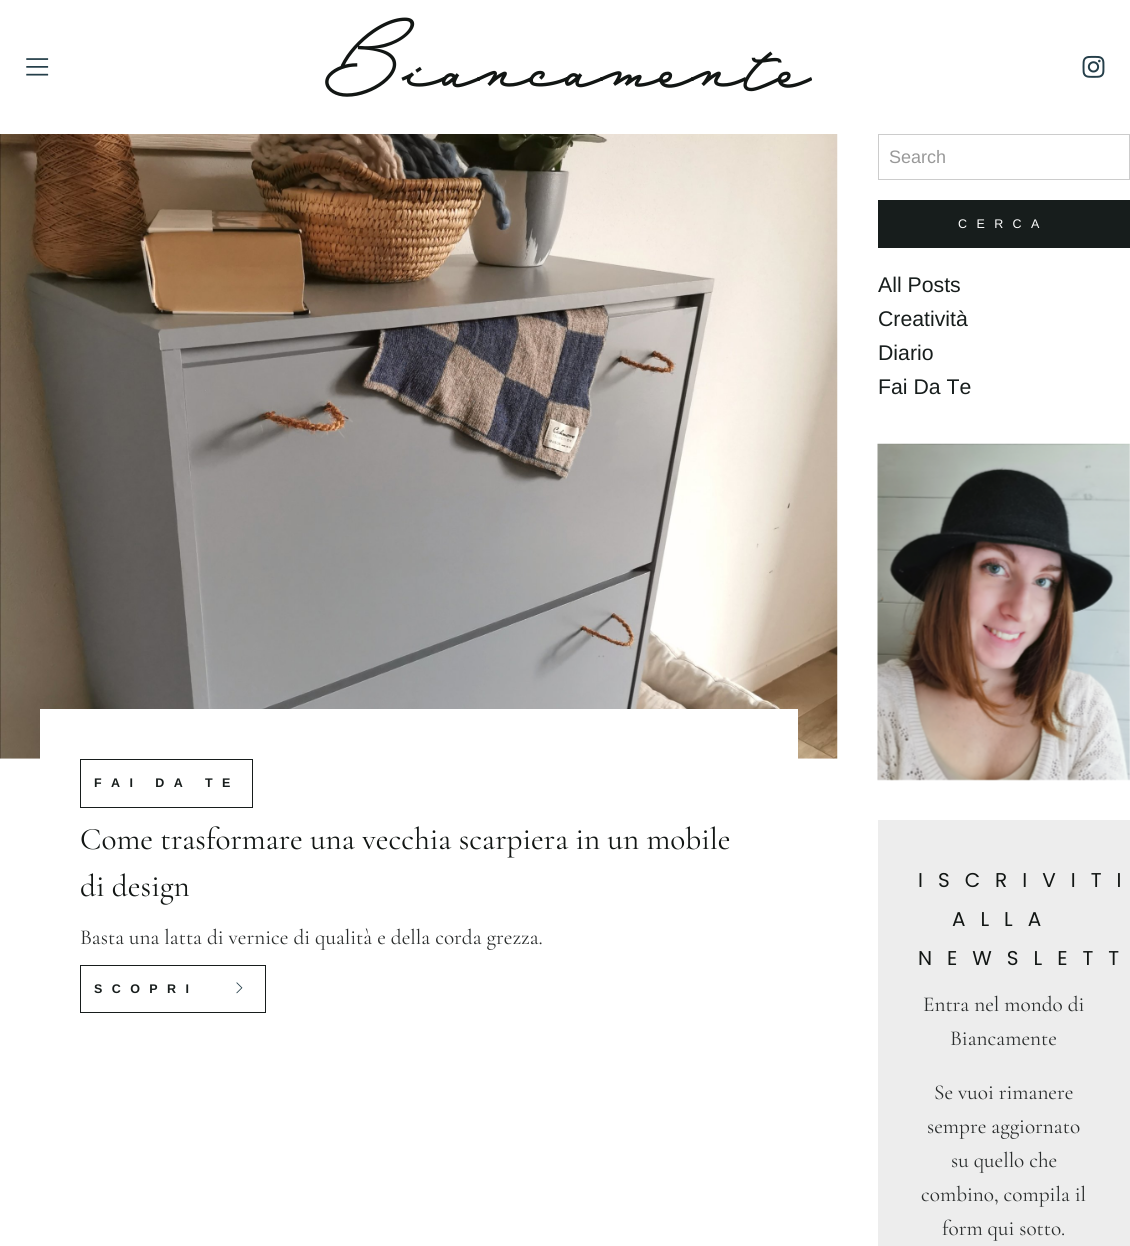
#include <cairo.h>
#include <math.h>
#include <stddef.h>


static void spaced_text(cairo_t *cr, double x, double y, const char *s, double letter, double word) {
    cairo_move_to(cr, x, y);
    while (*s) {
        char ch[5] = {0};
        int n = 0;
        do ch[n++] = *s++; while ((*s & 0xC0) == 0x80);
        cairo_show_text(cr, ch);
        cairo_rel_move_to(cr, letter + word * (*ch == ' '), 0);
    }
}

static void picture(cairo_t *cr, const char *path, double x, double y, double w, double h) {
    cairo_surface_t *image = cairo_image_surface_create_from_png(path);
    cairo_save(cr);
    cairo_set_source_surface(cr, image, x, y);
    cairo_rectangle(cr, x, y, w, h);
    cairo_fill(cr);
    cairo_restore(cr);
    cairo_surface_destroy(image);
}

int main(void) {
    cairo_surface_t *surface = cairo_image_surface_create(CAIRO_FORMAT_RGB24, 1130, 1246);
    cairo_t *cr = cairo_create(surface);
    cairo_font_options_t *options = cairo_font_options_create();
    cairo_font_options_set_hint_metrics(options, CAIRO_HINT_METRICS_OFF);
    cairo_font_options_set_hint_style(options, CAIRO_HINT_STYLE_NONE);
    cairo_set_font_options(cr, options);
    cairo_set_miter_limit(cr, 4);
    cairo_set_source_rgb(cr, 1, 1, 1);
    cairo_paint(cr);
    picture(cr, "img1.png", 26, 58, 23, 18);
    cairo_select_font_face(cr, "Mina", CAIRO_FONT_SLANT_NORMAL, CAIRO_FONT_WEIGHT_BOLD);
    cairo_set_font_size(cr, 62.5);
    cairo_set_source_rgb(cr, 0.071, 0.086, 0.082);
    cairo_move_to(cr, 320, 85);
    cairo_show_text(cr, "Biancamente");
    picture(cr, "img2.png", 1082, 55, 23, 23);
    picture(cr, "img3.png", 0, 134, 838, 625);
    cairo_set_source_rgb(cr, 1, 1, 1);
    cairo_rectangle(cr, 40, 709, 758, 50);
    cairo_fill(cr);
    cairo_rectangle(cr, 80.5, 759.5, 172, 48);
    cairo_set_source_rgb(cr, 0.09, 0.114, 0.11);
    cairo_set_line_width(cr, 1);
    cairo_stroke(cr);
    cairo_select_font_face(cr, "Liberation Sans", CAIRO_FONT_SLANT_NORMAL, CAIRO_FONT_WEIGHT_BOLD);
    cairo_set_font_size(cr, 12.5);
    spaced_text(cr, 94, 787, "FAI DA TE", 9.4, 0);
    cairo_select_font_face(cr, "Cormorant Garamond", CAIRO_FONT_SLANT_NORMAL, CAIRO_FONT_WEIGHT_NORMAL);
    cairo_set_font_size(cr, 31.25);
    cairo_set_source_rgb(cr, 0.071, 0.086, 0.082);
    cairo_move_to(cr, 80, 849);
    cairo_show_text(cr, "Come trasformare una vecchia scarpiera in un mobile");
    cairo_move_to(cr, 80, 896);
    cairo_show_text(cr, "di design");
    cairo_set_font_size(cr, 21.25);
    cairo_set_source_rgb(cr, 0.165, 0.176, 0.176);
    cairo_move_to(cr, 80, 944);
    cairo_show_text(cr, "Basta una latta di vernice di qualità e della corda grezza.");
    cairo_rectangle(cr, 80.5, 965.5, 185, 47);
    cairo_set_source_rgb(cr, 0.09, 0.114, 0.11);
    cairo_stroke(cr);
    cairo_select_font_face(cr, "Liberation Sans", CAIRO_FONT_SLANT_NORMAL, CAIRO_FONT_WEIGHT_BOLD);
    cairo_set_font_size(cr, 12.5);
    spaced_text(cr, 94, 993, "SCOPRI", 9.4, 0);
    picture(cr, "img4.png", 236, 982, 7, 12);
    cairo_rectangle(cr, 878.5, 134.5, 251, 45);
    cairo_set_source_rgb(cr, 0.8, 0.8, 0.8);
    cairo_stroke(cr);
    cairo_select_font_face(cr, "Liberation Sans", CAIRO_FONT_SLANT_NORMAL, CAIRO_FONT_WEIGHT_NORMAL);
    cairo_set_font_size(cr, 18);
    cairo_set_source_rgb(cr, 0.6, 0.6, 0.6);
    cairo_move_to(cr, 889, 163);
    cairo_show_text(cr, "Search");
    cairo_set_source_rgb(cr, 0.09, 0.114, 0.11);
    cairo_rectangle(cr, 878, 200, 252, 48);
    cairo_fill(cr);
    cairo_set_font_size(cr, 12.5);
    cairo_set_source_rgb(cr, 1, 1, 1);
    spaced_text(cr, 958, 228, "CERCA", 9.4, 0);
    cairo_set_font_size(cr, 21.25);
    cairo_set_source_rgb(cr, 0.09, 0.114, 0.11);
    cairo_move_to(cr, 878, 292);
    cairo_show_text(cr, "All Posts");
    cairo_move_to(cr, 878, 326);
    cairo_show_text(cr, "Creatività");
    cairo_move_to(cr, 878, 360);
    cairo_show_text(cr, "Diario");
    cairo_move_to(cr, 878, 394);
    cairo_show_text(cr, "Fai Da Te");
    picture(cr, "img5.png", 877, 443, 253, 338);
    cairo_set_source_rgb(cr, 0.929, 0.929, 0.929);
    cairo_rectangle(cr, 878, 820, 252, 426);
    cairo_fill(cr);
    cairo_select_font_face(cr, "Poppins", CAIRO_FONT_SLANT_NORMAL, CAIRO_FONT_WEIGHT_NORMAL);
    cairo_set_font_size(cr, 20);
    cairo_set_source_rgb(cr, 0.071, 0.086, 0.082);
    spaced_text(cr, 918, 887, "ISCRIVITI", 15, 0);
    spaced_text(cr, 952, 926, "ALLA", 15, 0);
    spaced_text(cr, 918, 965, "NEWSLETT", 15, 0);
    cairo_select_font_face(cr, "Cormorant Garamond", CAIRO_FONT_SLANT_NORMAL, CAIRO_FONT_WEIGHT_NORMAL);
    cairo_set_font_size(cr, 21.25);
    cairo_set_source_rgb(cr, 0.165, 0.176, 0.176);
    cairo_move_to(cr, 923, 1011);
    cairo_show_text(cr, "Entra nel mondo di");
    cairo_move_to(cr, 950, 1045);
    cairo_show_text(cr, "Biancamente");
    cairo_move_to(cr, 934, 1099);
    cairo_show_text(cr, "Se vuoi rimanere");
    cairo_move_to(cr, 927, 1133);
    cairo_show_text(cr, "sempre aggiornato");
    cairo_move_to(cr, 951, 1167);
    cairo_show_text(cr, "su quello che");
    cairo_move_to(cr, 921, 1201);
    cairo_show_text(cr, "combino, compila il");
    cairo_move_to(cr, 942, 1235);
    cairo_show_text(cr, "form qui sotto.");
    cairo_set_source_rgb(cr, 0.631, 0.631, 0.639);
    cairo_move_to(cr, 597, 657);
    cairo_show_text(cr, "..");
    cairo_surface_write_to_png(surface, "page.png");
    cairo_font_options_destroy(options);
    cairo_destroy(cr);
    cairo_surface_destroy(surface);
    return 0;
}
